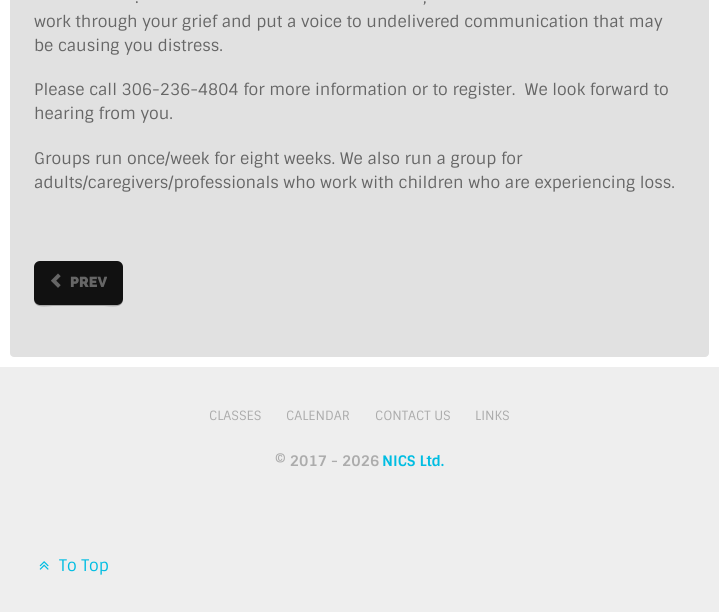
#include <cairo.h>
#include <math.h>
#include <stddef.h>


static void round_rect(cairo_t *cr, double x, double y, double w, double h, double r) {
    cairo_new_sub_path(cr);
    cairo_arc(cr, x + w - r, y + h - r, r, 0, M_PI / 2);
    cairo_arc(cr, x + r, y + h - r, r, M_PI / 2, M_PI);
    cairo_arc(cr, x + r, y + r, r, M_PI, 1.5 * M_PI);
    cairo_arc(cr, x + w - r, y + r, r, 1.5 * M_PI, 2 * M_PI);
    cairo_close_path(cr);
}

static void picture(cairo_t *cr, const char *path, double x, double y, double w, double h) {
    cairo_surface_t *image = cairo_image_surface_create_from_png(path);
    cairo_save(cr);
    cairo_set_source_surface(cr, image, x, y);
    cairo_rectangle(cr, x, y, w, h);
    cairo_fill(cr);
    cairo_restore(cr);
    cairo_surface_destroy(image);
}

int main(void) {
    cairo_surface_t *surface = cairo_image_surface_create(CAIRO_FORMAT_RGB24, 719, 612);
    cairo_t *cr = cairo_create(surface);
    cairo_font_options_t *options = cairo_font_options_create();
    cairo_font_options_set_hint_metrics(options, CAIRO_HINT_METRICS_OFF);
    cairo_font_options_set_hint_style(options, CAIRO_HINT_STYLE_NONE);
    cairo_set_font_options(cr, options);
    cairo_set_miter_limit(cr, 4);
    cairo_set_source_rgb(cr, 0.933, 0.933, 0.933);
    cairo_paint(cr);
    cairo_set_source_rgb(cr, 1, 1, 1);
    cairo_rectangle(cr, 0, 0, 719, 367);
    cairo_fill(cr);
    cairo_set_source_rgb(cr, 0.882, 0.882, 0.882);
    round_rect(cr, 10, -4, 699, 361, 4);
    cairo_fill(cr);
    cairo_select_font_face(cr, "Sintony", CAIRO_FONT_SLANT_NORMAL, CAIRO_FONT_WEIGHT_NORMAL);
    cairo_set_font_size(cr, 16);
    cairo_set_source_rgb(cr, 0.4, 0.4, 0.4);
    cairo_move_to(cr, 135, 3);
    cairo_show_text(cr, ".");
    cairo_move_to(cr, 423, 3);
    cairo_show_text(cr, ",");
    cairo_move_to(cr, 34, 27);
    cairo_show_text(cr, "work through your grief and put a voice to undelivered communication that may");
    cairo_move_to(cr, 34, 51);
    cairo_show_text(cr, "be causing you distress.");
    cairo_move_to(cr, 34, 95);
    cairo_show_text(cr, "Please call 306-236-4804 for more information or to register.  We look forward to");
    cairo_move_to(cr, 34, 119);
    cairo_show_text(cr, "hearing from you.");
    cairo_move_to(cr, 34, 164);
    cairo_show_text(cr, "Groups run once/week for eight weeks. We also run a group for");
    cairo_move_to(cr, 34, 188);
    cairo_show_text(cr, "adults/caregivers/professionals who work with children who are experiencing loss.");
    cairo_set_source_rgb(cr, 0.663, 0.663, 0.663);
    cairo_new_path(cr);
    cairo_move_to(cr, 34, 299);
    cairo_curve_to(cr, 34, 309, 45, 306, 53, 306);
    cairo_line_to(cr, 104, 306);
    cairo_curve_to(cr, 112, 306, 123, 309, 123, 299);
    cairo_curve_to(cr, 123, 302, 120, 305, 117, 305);
    cairo_line_to(cr, 40, 305);
    cairo_curve_to(cr, 37, 305, 34, 302, 34, 299);
    cairo_close_path(cr);
    cairo_fill(cr);
    cairo_set_source_rgb(cr, 0.067, 0.067, 0.067);
    round_rect(cr, 34, 261, 89, 44, 6);
    cairo_fill(cr);
    picture(cr, "img1.png", 51, 273, 10, 15);
    cairo_select_font_face(cr, "Raleway Black", CAIRO_FONT_SLANT_NORMAL, CAIRO_FONT_WEIGHT_NORMAL);
    cairo_set_font_size(cr, 14.5);
    cairo_set_source_rgb(cr, 0.4, 0.4, 0.4);
    cairo_move_to(cr, 70, 287);
    cairo_show_text(cr, "PREV");
    cairo_select_font_face(cr, "Sintony", CAIRO_FONT_SLANT_NORMAL, CAIRO_FONT_WEIGHT_NORMAL);
    cairo_set_font_size(cr, 12.75);
    cairo_set_source_rgb(cr, 0.675, 0.675, 0.675);
    cairo_move_to(cr, 209, 420);
    cairo_show_text(cr, "CLASSES");
    cairo_move_to(cr, 286, 420);
    cairo_show_text(cr, "CALENDAR");
    cairo_move_to(cr, 375, 420);
    cairo_show_text(cr, "CONTACT US");
    cairo_move_to(cr, 475, 420);
    cairo_show_text(cr, "LINKS");
    cairo_select_font_face(cr, "Sintony", CAIRO_FONT_SLANT_NORMAL, CAIRO_FONT_WEIGHT_BOLD);
    cairo_set_font_size(cr, 14.5);
    cairo_move_to(cr, 275, 466);
    cairo_show_text(cr, "© 2017 - 2026");
    cairo_set_source_rgb(cr, 0, 0.741, 0.886);
    cairo_move_to(cr, 382, 466);
    cairo_show_text(cr, "NICS Ltd.");
    picture(cr, "img2.png", 39, 561, 10, 9);
    cairo_select_font_face(cr, "Sintony", CAIRO_FONT_SLANT_NORMAL, CAIRO_FONT_WEIGHT_NORMAL);
    cairo_set_font_size(cr, 16);
    cairo_move_to(cr, 59, 571);
    cairo_show_text(cr, "To Top");
    cairo_surface_write_to_png(surface, "page.png");
    cairo_font_options_destroy(options);
    cairo_destroy(cr);
    cairo_surface_destroy(surface);
    return 0;
}
